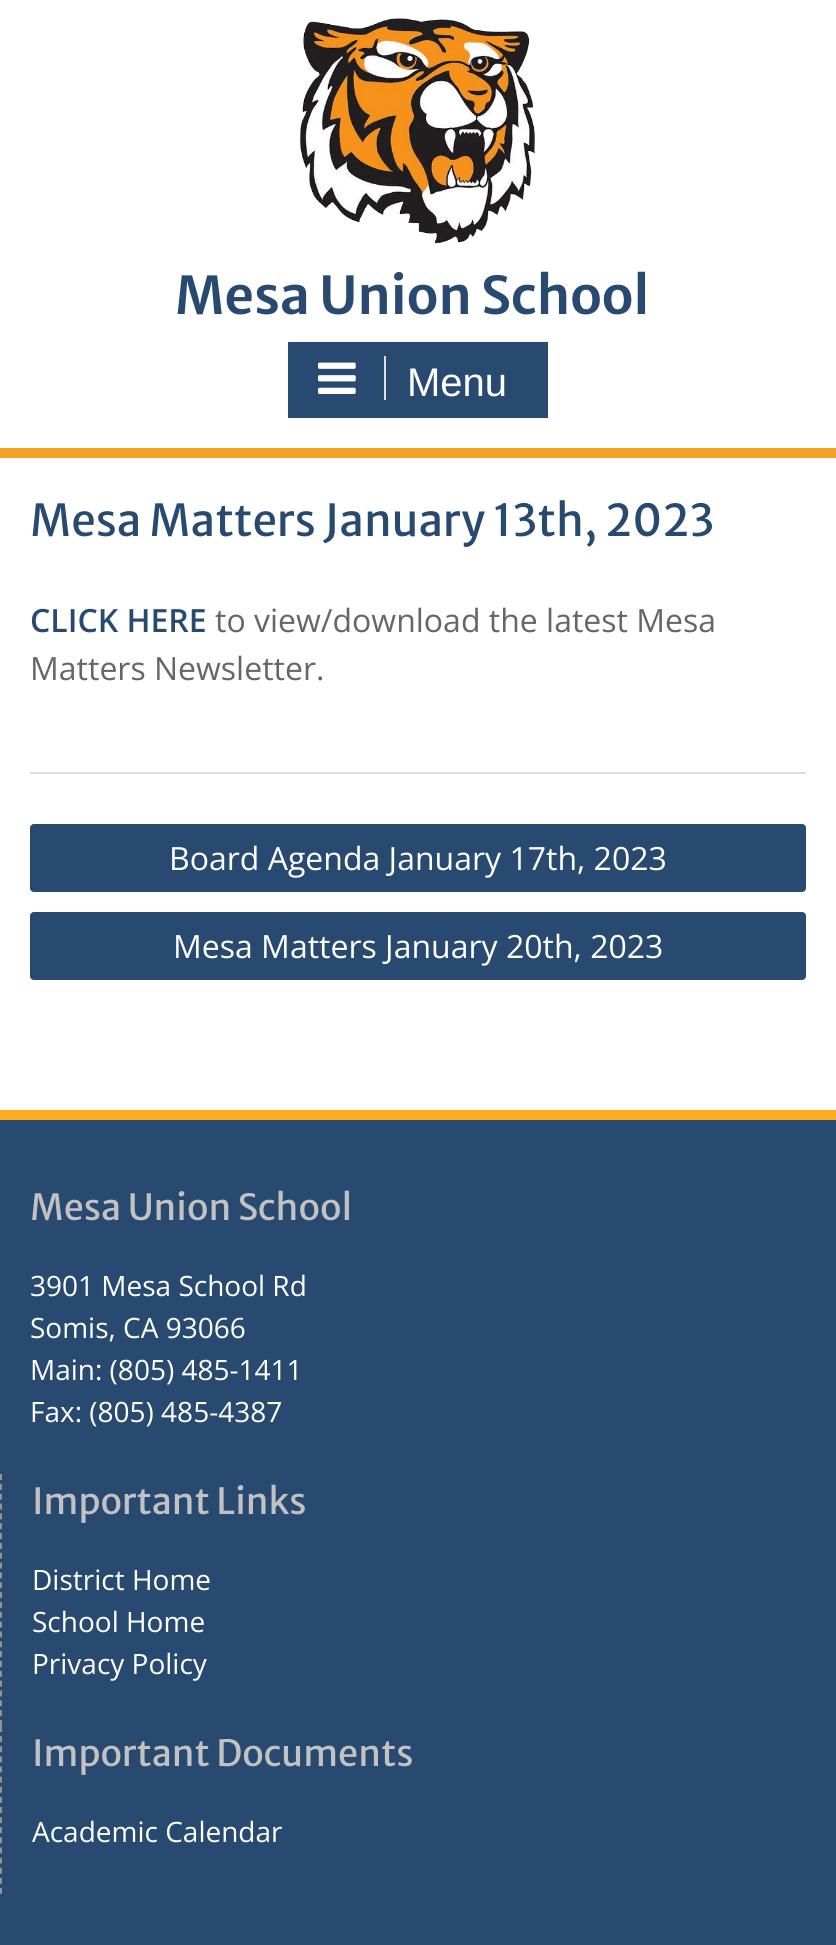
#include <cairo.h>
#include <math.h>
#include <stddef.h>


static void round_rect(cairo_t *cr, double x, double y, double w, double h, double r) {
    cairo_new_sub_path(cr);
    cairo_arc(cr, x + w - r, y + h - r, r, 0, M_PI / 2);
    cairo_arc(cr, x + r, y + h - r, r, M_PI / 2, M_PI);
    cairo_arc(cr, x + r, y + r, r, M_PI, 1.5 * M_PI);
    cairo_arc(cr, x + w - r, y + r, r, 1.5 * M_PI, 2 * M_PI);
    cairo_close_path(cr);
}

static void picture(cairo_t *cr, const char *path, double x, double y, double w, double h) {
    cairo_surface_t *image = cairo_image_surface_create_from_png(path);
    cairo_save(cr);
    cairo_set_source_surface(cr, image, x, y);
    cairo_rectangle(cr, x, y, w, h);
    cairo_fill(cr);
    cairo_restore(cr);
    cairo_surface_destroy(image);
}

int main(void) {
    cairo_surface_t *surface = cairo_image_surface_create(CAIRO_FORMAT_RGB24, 836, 1945);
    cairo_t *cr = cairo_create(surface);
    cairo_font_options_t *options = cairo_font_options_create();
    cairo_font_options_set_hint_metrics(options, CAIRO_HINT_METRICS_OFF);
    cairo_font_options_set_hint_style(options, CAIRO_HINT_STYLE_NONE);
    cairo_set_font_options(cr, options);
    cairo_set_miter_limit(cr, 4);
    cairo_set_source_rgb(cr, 1, 1, 1);
    cairo_paint(cr);
    picture(cr, "img1.png", 300, 18, 235, 226);
    cairo_select_font_face(cr, "Merriweather Sans SemiBold", CAIRO_FONT_SLANT_NORMAL, CAIRO_FONT_WEIGHT_NORMAL);
    cairo_set_font_size(cr, 52);
    cairo_set_source_rgb(cr, 0.161, 0.29, 0.439);
    cairo_move_to(cr, 175, 314);
    cairo_show_text(cr, "Mesa Union School");
    cairo_set_source_rgb(cr, 0.957, 0.627, 0.141);
    cairo_rectangle(cr, 0, 448, 836, 10);
    cairo_fill(cr);
    cairo_set_source_rgb(cr, 0.161, 0.29, 0.439);
    cairo_rectangle(cr, 288, 342, 260, 76);
    cairo_fill(cr);
    cairo_set_source_rgb(cr, 0.867, 0.867, 0.867);
    cairo_rectangle(cr, 384, 356, 2, 44);
    cairo_fill(cr);
    picture(cr, "img2.png", 318, 362, 38, 32);
    cairo_select_font_face(cr, "Liberation Sans", CAIRO_FONT_SLANT_NORMAL, CAIRO_FONT_WEIGHT_NORMAL);
    cairo_set_font_size(cr, 40);
    cairo_set_source_rgb(cr, 1, 1, 1);
    cairo_move_to(cr, 407, 396);
    cairo_show_text(cr, "Menu");
    cairo_set_source_rgb(cr, 0.867, 0.867, 0.867);
    cairo_rectangle(cr, 30, 772, 776, 2);
    cairo_fill(cr);
    cairo_select_font_face(cr, "Merriweather Sans", CAIRO_FONT_SLANT_NORMAL, CAIRO_FONT_WEIGHT_NORMAL);
    cairo_set_font_size(cr, 44);
    cairo_set_source_rgb(cr, 0.161, 0.29, 0.439);
    cairo_move_to(cr, 30, 536);
    cairo_show_text(cr, "Mesa Matters January 13th, 2023");
    cairo_select_font_face(cr, "Open Sans SemiBold", CAIRO_FONT_SLANT_NORMAL, CAIRO_FONT_WEIGHT_NORMAL);
    cairo_set_font_size(cr, 32);
    cairo_move_to(cr, 30, 632);
    cairo_show_text(cr, "CLICK HERE");
    cairo_select_font_face(cr, "Open Sans", CAIRO_FONT_SLANT_NORMAL, CAIRO_FONT_WEIGHT_NORMAL);
    cairo_set_source_rgb(cr, 0.4, 0.4, 0.4);
    cairo_move_to(cr, 215, 632);
    cairo_show_text(cr, "to view/download the latest Mesa");
    cairo_move_to(cr, 30, 680);
    cairo_show_text(cr, "Matters Newsletter.");
    cairo_set_source_rgb(cr, 0.161, 0.29, 0.439);
    round_rect(cr, 30, 824, 776, 68, 4);
    cairo_fill(cr);
    cairo_set_source_rgb(cr, 1, 1, 1);
    cairo_move_to(cr, 169, 870);
    cairo_show_text(cr, "Board Agenda January 17th, 2023");
    cairo_set_source_rgb(cr, 0.161, 0.29, 0.439);
    round_rect(cr, 30, 912, 776, 68, 4);
    cairo_fill(cr);
    cairo_set_source_rgb(cr, 1, 1, 1);
    cairo_move_to(cr, 173, 958);
    cairo_show_text(cr, "Mesa Matters January 20th, 2023");
    cairo_set_source_rgb(cr, 0.161, 0.29, 0.439);
    cairo_rectangle(cr, 0, 1120, 836, 825);
    cairo_fill(cr);
    cairo_set_source_rgb(cr, 1, 0.671, 0.122);
    cairo_rectangle(cr, 0, 1110, 836, 10);
    cairo_fill(cr);
    cairo_select_font_face(cr, "Merriweather Sans", CAIRO_FONT_SLANT_NORMAL, CAIRO_FONT_WEIGHT_NORMAL);
    cairo_set_font_size(cr, 36);
    cairo_set_source_rgb(cr, 0.761, 0.761, 0.761);
    cairo_move_to(cr, 30, 1220);
    cairo_show_text(cr, "Mesa Union School");
    cairo_select_font_face(cr, "Open Sans", CAIRO_FONT_SLANT_NORMAL, CAIRO_FONT_WEIGHT_NORMAL);
    cairo_set_font_size(cr, 28);
    cairo_set_source_rgb(cr, 1, 1, 1);
    cairo_move_to(cr, 30, 1296);
    cairo_show_text(cr, "3901 Mesa School Rd");
    cairo_move_to(cr, 30, 1338);
    cairo_show_text(cr, "Somis, CA 93066");
    cairo_move_to(cr, 30, 1380);
    cairo_show_text(cr, "Main: (805) 485-1411");
    cairo_move_to(cr, 30, 1422);
    cairo_show_text(cr, "Fax: (805) 485-4387");
    cairo_new_path(cr);
    cairo_move_to(cr, 1, 1474);
    cairo_line_to(cr, 1, 1726);
    cairo_set_source_rgb(cr, 0.576, 0.576, 0.576);
    cairo_set_dash(cr, (double[]){6, 3.84}, 2, 0);
    cairo_stroke(cr);
    cairo_select_font_face(cr, "Merriweather Sans", CAIRO_FONT_SLANT_NORMAL, CAIRO_FONT_WEIGHT_NORMAL);
    cairo_set_font_size(cr, 36);
    cairo_set_source_rgb(cr, 0.761, 0.761, 0.761);
    cairo_move_to(cr, 32, 1514);
    cairo_show_text(cr, "Important Links");
    cairo_select_font_face(cr, "Open Sans", CAIRO_FONT_SLANT_NORMAL, CAIRO_FONT_WEIGHT_NORMAL);
    cairo_set_font_size(cr, 28);
    cairo_set_source_rgb(cr, 1, 1, 1);
    cairo_move_to(cr, 32, 1590);
    cairo_show_text(cr, "District Home");
    cairo_move_to(cr, 32, 1632);
    cairo_show_text(cr, "School Home");
    cairo_move_to(cr, 32, 1674);
    cairo_show_text(cr, "Privacy Policy");
    cairo_new_path(cr);
    cairo_move_to(cr, 1, 1726);
    cairo_line_to(cr, 1, 1894);
    cairo_set_source_rgb(cr, 0.576, 0.576, 0.576);
    cairo_set_dash(cr, (double[]){6, 4.12}, 2, 0);
    cairo_stroke(cr);
    cairo_select_font_face(cr, "Merriweather Sans", CAIRO_FONT_SLANT_NORMAL, CAIRO_FONT_WEIGHT_NORMAL);
    cairo_set_font_size(cr, 36);
    cairo_set_source_rgb(cr, 0.761, 0.761, 0.761);
    cairo_move_to(cr, 32, 1766);
    cairo_show_text(cr, "Important Documents");
    cairo_select_font_face(cr, "Open Sans", CAIRO_FONT_SLANT_NORMAL, CAIRO_FONT_WEIGHT_NORMAL);
    cairo_set_font_size(cr, 28);
    cairo_set_source_rgb(cr, 1, 1, 1);
    cairo_move_to(cr, 32, 1842);
    cairo_show_text(cr, "Academic Calendar");
    cairo_surface_write_to_png(surface, "page.png");
    cairo_font_options_destroy(options);
    cairo_destroy(cr);
    cairo_surface_destroy(surface);
    return 0;
}
